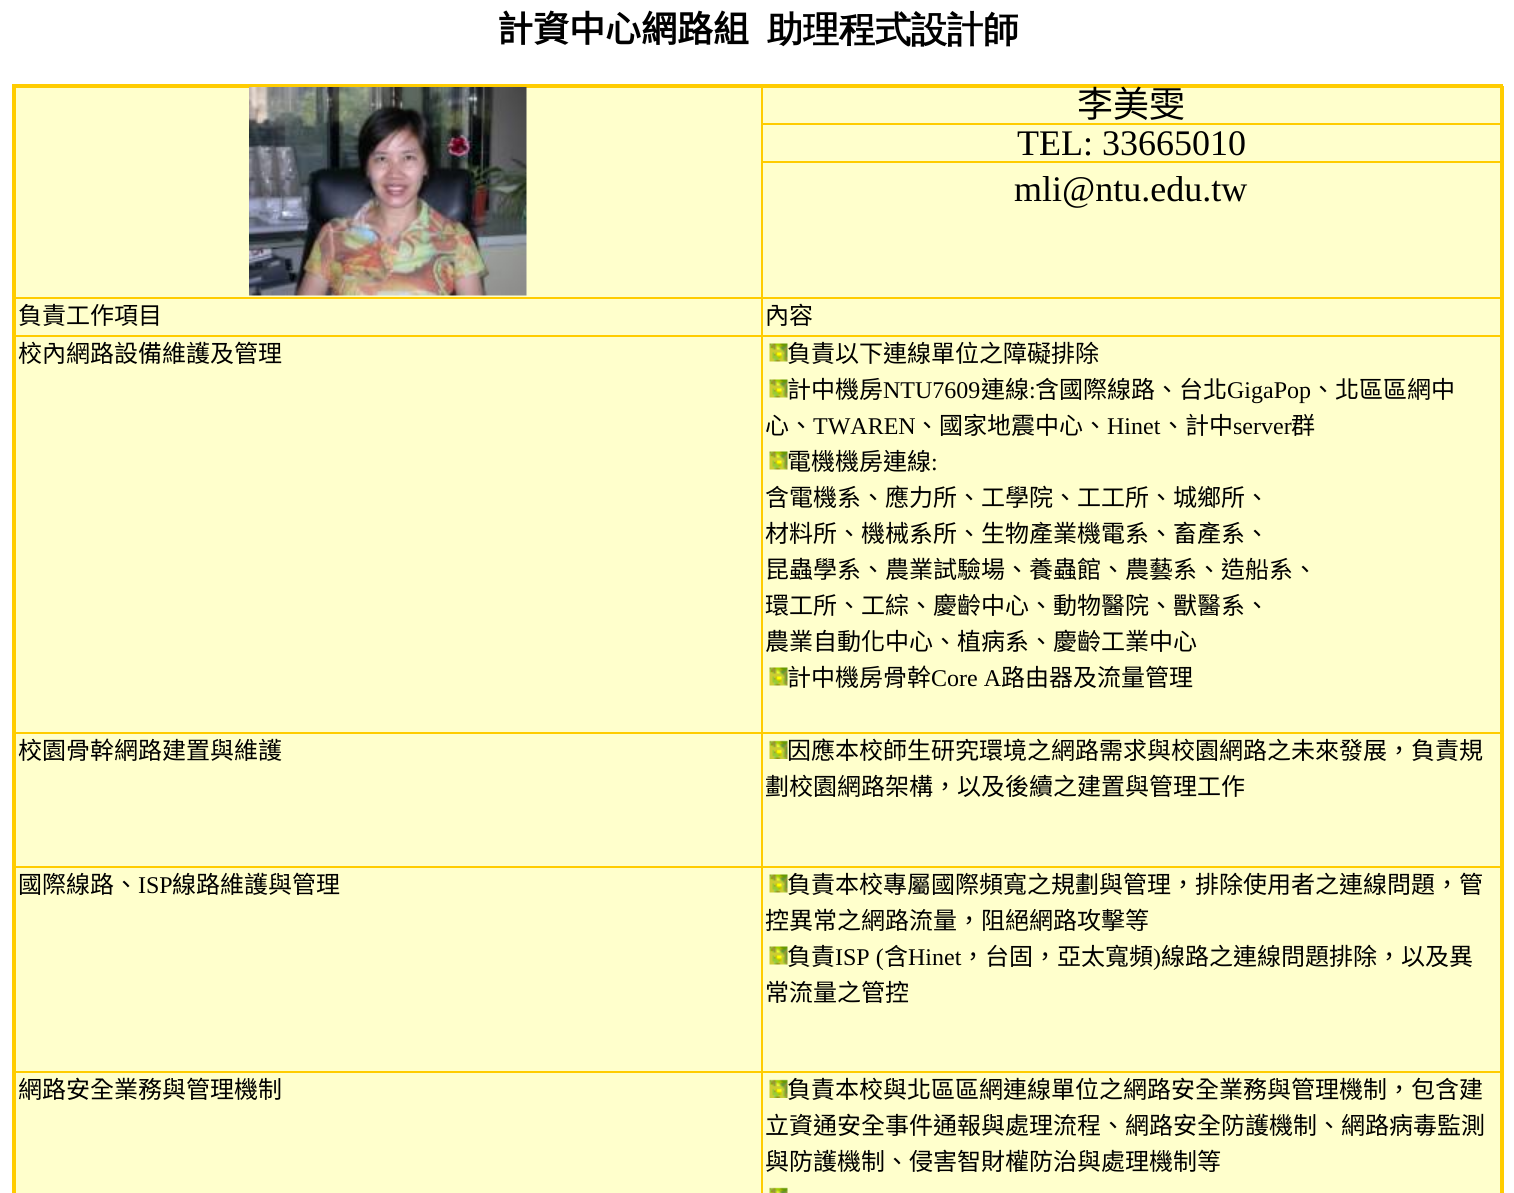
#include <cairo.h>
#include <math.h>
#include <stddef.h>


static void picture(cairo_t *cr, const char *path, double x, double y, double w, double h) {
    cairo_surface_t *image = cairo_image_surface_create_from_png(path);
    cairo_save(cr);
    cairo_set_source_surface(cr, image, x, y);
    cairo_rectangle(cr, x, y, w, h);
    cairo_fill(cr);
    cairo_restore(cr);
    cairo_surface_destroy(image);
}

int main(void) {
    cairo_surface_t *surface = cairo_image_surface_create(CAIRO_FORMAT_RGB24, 1514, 1193);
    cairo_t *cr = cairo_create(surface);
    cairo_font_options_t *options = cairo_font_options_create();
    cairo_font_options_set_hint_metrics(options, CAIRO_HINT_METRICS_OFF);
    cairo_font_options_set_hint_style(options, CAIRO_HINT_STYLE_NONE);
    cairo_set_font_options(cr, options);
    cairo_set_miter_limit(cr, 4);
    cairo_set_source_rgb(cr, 1, 1, 1);
    cairo_paint(cr);
    cairo_select_font_face(cr, "Noto Sans CJK TC", CAIRO_FONT_SLANT_NORMAL, CAIRO_FONT_WEIGHT_BOLD);
    cairo_set_font_size(cr, 36);
    cairo_set_source_rgb(cr, 0, 0, 0);
    cairo_move_to(cr, 497, 42);
    cairo_show_text(cr, "計資中心網路組");
    cairo_select_font_face(cr, "WenQuanYi Zen Hei", CAIRO_FONT_SLANT_NORMAL, CAIRO_FONT_WEIGHT_BOLD);
    cairo_move_to(cr, 767, 42);
    cairo_show_text(cr, "助理程式設計師");
    cairo_set_source_rgb(cr, 1, 1, 0.8);
    cairo_rectangle(cr, 16, 88, 1484, 1105);
    cairo_fill(cr);
    cairo_set_source_rgb(cr, 1, 0.8, 0);
    cairo_rectangle(cr, 761, 87, 742, 1);
    cairo_fill(cr);
    cairo_rectangle(cr, 761, 123, 742, 2);
    cairo_fill(cr);
    cairo_rectangle(cr, 761, 161, 742, 2);
    cairo_fill(cr);
    cairo_rectangle(cr, 761, 297, 742, 2);
    cairo_fill(cr);
    cairo_rectangle(cr, 761, 335, 742, 2);
    cairo_fill(cr);
    cairo_rectangle(cr, 761, 732, 742, 2);
    cairo_fill(cr);
    cairo_rectangle(cr, 761, 866, 742, 2);
    cairo_fill(cr);
    cairo_rectangle(cr, 761, 1071, 742, 2);
    cairo_fill(cr);
    cairo_rectangle(cr, 761, 1071, 2, 122);
    cairo_fill(cr);
    cairo_rectangle(cr, 14, 1071, 748, 2);
    cairo_fill(cr);
    cairo_rectangle(cr, 761, 866, 2, 207);
    cairo_fill(cr);
    cairo_rectangle(cr, 14, 866, 748, 2);
    cairo_fill(cr);
    cairo_rectangle(cr, 761, 732, 2, 135);
    cairo_fill(cr);
    cairo_rectangle(cr, 14, 732, 748, 2);
    cairo_fill(cr);
    cairo_rectangle(cr, 761, 335, 2, 399);
    cairo_fill(cr);
    cairo_rectangle(cr, 14, 335, 748, 2);
    cairo_fill(cr);
    cairo_rectangle(cr, 761, 297, 2, 39);
    cairo_fill(cr);
    cairo_rectangle(cr, 14, 297, 748, 2);
    cairo_fill(cr);
    cairo_rectangle(cr, 761, 161, 2, 138);
    cairo_fill(cr);
    cairo_rectangle(cr, 761, 123, 2, 39);
    cairo_fill(cr);
    cairo_rectangle(cr, 761, 86, 2, 39);
    cairo_fill(cr);
    cairo_rectangle(cr, 14, 87, 748, 1);
    cairo_fill(cr);
    cairo_rectangle(cr, 15, 1071, 1, 122);
    cairo_fill(cr);
    cairo_rectangle(cr, 15, 866, 1, 207);
    cairo_fill(cr);
    cairo_rectangle(cr, 15, 732, 1, 135);
    cairo_fill(cr);
    cairo_rectangle(cr, 15, 335, 1, 399);
    cairo_fill(cr);
    cairo_rectangle(cr, 15, 297, 1, 39);
    cairo_fill(cr);
    cairo_rectangle(cr, 15, 86, 1, 213);
    cairo_fill(cr);
    cairo_rectangle(cr, 12, 84, 1491, 3);
    cairo_fill(cr);
    cairo_rectangle(cr, 1500, 84, 3, 1109);
    cairo_fill(cr);
    cairo_rectangle(cr, 12, 84, 3, 1109);
    cairo_fill(cr);
    picture(cr, "img1.png", 249, 87, 278, 209);
    cairo_select_font_face(cr, "Noto Sans CJK TC", CAIRO_FONT_SLANT_NORMAL, CAIRO_FONT_WEIGHT_NORMAL);
    cairo_set_source_rgb(cr, 0, 0, 0);
    cairo_move_to(cr, 1077, 117);
    cairo_show_text(cr, "李美雯");
    cairo_select_font_face(cr, "Liberation Serif", CAIRO_FONT_SLANT_NORMAL, CAIRO_FONT_WEIGHT_NORMAL);
    cairo_move_to(cr, 1017, 155);
    cairo_show_text(cr, "TEL: 33665010");
    cairo_move_to(cr, 1014, 201);
    cairo_show_text(cr, "mli@ntu.edu.tw");
    cairo_select_font_face(cr, "Noto Sans CJK TC", CAIRO_FONT_SLANT_NORMAL, CAIRO_FONT_WEIGHT_NORMAL);
    cairo_set_font_size(cr, 24);
    cairo_move_to(cr, 18, 324);
    cairo_show_text(cr, "負責工作項目");
    cairo_move_to(cr, 765, 324);
    cairo_show_text(cr, "內容");
    cairo_move_to(cr, 18, 362);
    cairo_show_text(cr, "校內網路設備維護及管理");
    picture(cr, "img2.png", 769, 343, 19, 19);
    cairo_move_to(cr, 787, 362);
    cairo_show_text(cr, "負責以下連線單位之障礙排除");
    picture(cr, "img2.png", 769, 379, 19, 19);
    cairo_move_to(cr, 787, 398);
    cairo_show_text(cr, "計中機房");
    cairo_select_font_face(cr, "Liberation Serif", CAIRO_FONT_SLANT_NORMAL, CAIRO_FONT_WEIGHT_NORMAL);
    cairo_move_to(cr, 883, 398);
    cairo_show_text(cr, "NTU7609");
    cairo_select_font_face(cr, "Noto Sans CJK TC", CAIRO_FONT_SLANT_NORMAL, CAIRO_FONT_WEIGHT_NORMAL);
    cairo_move_to(cr, 981, 398);
    cairo_show_text(cr, "連線");
    cairo_select_font_face(cr, "Liberation Serif", CAIRO_FONT_SLANT_NORMAL, CAIRO_FONT_WEIGHT_NORMAL);
    cairo_move_to(cr, 1029, 398);
    cairo_show_text(cr, ":");
    cairo_select_font_face(cr, "Noto Sans CJK TC", CAIRO_FONT_SLANT_NORMAL, CAIRO_FONT_WEIGHT_NORMAL);
    cairo_move_to(cr, 1035, 398);
    cairo_show_text(cr, "含國際線路、台北");
    cairo_select_font_face(cr, "Liberation Serif", CAIRO_FONT_SLANT_NORMAL, CAIRO_FONT_WEIGHT_NORMAL);
    cairo_move_to(cr, 1227, 398);
    cairo_show_text(cr, "GigaPop");
    cairo_select_font_face(cr, "Noto Sans CJK TC", CAIRO_FONT_SLANT_NORMAL, CAIRO_FONT_WEIGHT_NORMAL);
    cairo_move_to(cr, 1311, 398);
    cairo_show_text(cr, "、北區區網中");
    cairo_move_to(cr, 765, 434);
    cairo_show_text(cr, "心、");
    cairo_select_font_face(cr, "Liberation Serif", CAIRO_FONT_SLANT_NORMAL, CAIRO_FONT_WEIGHT_NORMAL);
    cairo_move_to(cr, 813, 434);
    cairo_show_text(cr, "TWAREN");
    cairo_select_font_face(cr, "Noto Sans CJK TC", CAIRO_FONT_SLANT_NORMAL, CAIRO_FONT_WEIGHT_NORMAL);
    cairo_move_to(cr, 915, 434);
    cairo_show_text(cr, "、國家地震中心、");
    cairo_select_font_face(cr, "Liberation Serif", CAIRO_FONT_SLANT_NORMAL, CAIRO_FONT_WEIGHT_NORMAL);
    cairo_move_to(cr, 1107, 434);
    cairo_show_text(cr, "Hinet");
    cairo_select_font_face(cr, "Noto Sans CJK TC", CAIRO_FONT_SLANT_NORMAL, CAIRO_FONT_WEIGHT_NORMAL);
    cairo_move_to(cr, 1161, 434);
    cairo_show_text(cr, "、計中");
    cairo_select_font_face(cr, "Liberation Serif", CAIRO_FONT_SLANT_NORMAL, CAIRO_FONT_WEIGHT_NORMAL);
    cairo_move_to(cr, 1233, 434);
    cairo_show_text(cr, "server");
    cairo_select_font_face(cr, "Noto Sans CJK TC", CAIRO_FONT_SLANT_NORMAL, CAIRO_FONT_WEIGHT_NORMAL);
    cairo_move_to(cr, 1291, 434);
    cairo_show_text(cr, "群");
    picture(cr, "img2.png", 769, 451, 19, 19);
    cairo_move_to(cr, 787, 470);
    cairo_show_text(cr, "電機機房連線");
    cairo_select_font_face(cr, "Liberation Serif", CAIRO_FONT_SLANT_NORMAL, CAIRO_FONT_WEIGHT_NORMAL);
    cairo_move_to(cr, 931, 470);
    cairo_show_text(cr, ":");
    cairo_select_font_face(cr, "Noto Sans CJK TC", CAIRO_FONT_SLANT_NORMAL, CAIRO_FONT_WEIGHT_NORMAL);
    cairo_move_to(cr, 765, 506);
    cairo_show_text(cr, "含電機系、應力所、工學院、工工所、城鄉所、");
    cairo_move_to(cr, 765, 542);
    cairo_show_text(cr, "材料所、機械系所、生物產業機電系、畜產系、");
    cairo_move_to(cr, 765, 578);
    cairo_show_text(cr, "昆蟲學系、農業試驗場、養蟲館、農藝系、造船系、");
    cairo_move_to(cr, 765, 614);
    cairo_show_text(cr, "環工所、工綜、慶齡中心、動物醫院、獸醫系、");
    cairo_move_to(cr, 765, 650);
    cairo_show_text(cr, "農業自動化中心、植病系、慶齡工業中心");
    picture(cr, "img2.png", 769, 667, 19, 19);
    cairo_move_to(cr, 787, 686);
    cairo_show_text(cr, "計中機房骨幹");
    cairo_select_font_face(cr, "Liberation Serif", CAIRO_FONT_SLANT_NORMAL, CAIRO_FONT_WEIGHT_NORMAL);
    cairo_move_to(cr, 931, 686);
    cairo_show_text(cr, "Core A");
    cairo_select_font_face(cr, "Noto Sans CJK TC", CAIRO_FONT_SLANT_NORMAL, CAIRO_FONT_WEIGHT_NORMAL);
    cairo_move_to(cr, 1001, 686);
    cairo_show_text(cr, "路由器及流量管理");
    cairo_move_to(cr, 18, 759);
    cairo_show_text(cr, "校園骨幹網路建置與維護");
    picture(cr, "img3.png", 769, 740, 19, 19);
    cairo_move_to(cr, 787, 759);
    cairo_show_text(cr, "因應本校師生研究環境之網路需求與校園網路之未來發展，負責規");
    cairo_move_to(cr, 765, 795);
    cairo_show_text(cr, "劃校園網路架構，以及後續之建置與管理工作");
    cairo_move_to(cr, 18, 893);
    cairo_show_text(cr, "國際線路、");
    cairo_select_font_face(cr, "Liberation Serif", CAIRO_FONT_SLANT_NORMAL, CAIRO_FONT_WEIGHT_NORMAL);
    cairo_move_to(cr, 138, 893);
    cairo_show_text(cr, "ISP");
    cairo_select_font_face(cr, "Noto Sans CJK TC", CAIRO_FONT_SLANT_NORMAL, CAIRO_FONT_WEIGHT_NORMAL);
    cairo_move_to(cr, 172, 893);
    cairo_show_text(cr, "線路維護與管理");
    picture(cr, "img2.png", 769, 874, 19, 19);
    cairo_move_to(cr, 787, 893);
    cairo_show_text(cr, "負責本校專屬國際頻寬之規劃與管理，排除使用者之連線問題，管");
    cairo_move_to(cr, 765, 929);
    cairo_show_text(cr, "控異常之網路流量，阻絕網路攻擊等");
    picture(cr, "img2.png", 769, 946, 19, 19);
    cairo_move_to(cr, 787, 965);
    cairo_show_text(cr, "負責");
    cairo_select_font_face(cr, "Liberation Serif", CAIRO_FONT_SLANT_NORMAL, CAIRO_FONT_WEIGHT_NORMAL);
    cairo_move_to(cr, 835, 965);
    cairo_show_text(cr, "ISP (");
    cairo_select_font_face(cr, "Noto Sans CJK TC", CAIRO_FONT_SLANT_NORMAL, CAIRO_FONT_WEIGHT_NORMAL);
    cairo_move_to(cr, 884, 965);
    cairo_show_text(cr, "含");
    cairo_select_font_face(cr, "Liberation Serif", CAIRO_FONT_SLANT_NORMAL, CAIRO_FONT_WEIGHT_NORMAL);
    cairo_move_to(cr, 908, 965);
    cairo_show_text(cr, "Hinet");
    cairo_select_font_face(cr, "Noto Sans CJK TC", CAIRO_FONT_SLANT_NORMAL, CAIRO_FONT_WEIGHT_NORMAL);
    cairo_move_to(cr, 961, 965);
    cairo_show_text(cr, "，台固，亞太寬頻");
    cairo_select_font_face(cr, "Liberation Serif", CAIRO_FONT_SLANT_NORMAL, CAIRO_FONT_WEIGHT_NORMAL);
    cairo_move_to(cr, 1153, 965);
    cairo_show_text(cr, ")");
    cairo_select_font_face(cr, "Noto Sans CJK TC", CAIRO_FONT_SLANT_NORMAL, CAIRO_FONT_WEIGHT_NORMAL);
    cairo_move_to(cr, 1161, 965);
    cairo_show_text(cr, "線路之連線問題排除，以及異");
    cairo_move_to(cr, 765, 1001);
    cairo_show_text(cr, "常流量之管控");
    cairo_move_to(cr, 18, 1098);
    cairo_show_text(cr, "網路安全業務與管理機制");
    cairo_set_source_rgb(cr, 1, 0.8, 0);
    cairo_rectangle(cr, 1503, 86, 1, 1107);
    cairo_fill(cr);
    picture(cr, "img3.png", 769, 1079, 19, 19);
    cairo_set_source_rgb(cr, 0, 0, 0);
    cairo_move_to(cr, 787, 1098);
    cairo_show_text(cr, "負責本校與北區區網連線單位之網路安全業務與管理機制，包含建");
    cairo_move_to(cr, 765, 1134);
    cairo_show_text(cr, "立資通安全事件通報與處理流程、網路安全防護機制、網路病毒監測");
    cairo_move_to(cr, 765, 1170);
    cairo_show_text(cr, "與防護機制、侵害智財權防治與處理機制等");
    picture(cr, "img4.png", 769, 1187, 19, 6);
    cairo_surface_write_to_png(surface, "page.png");
    cairo_font_options_destroy(options);
    cairo_destroy(cr);
    cairo_surface_destroy(surface);
    return 0;
}
